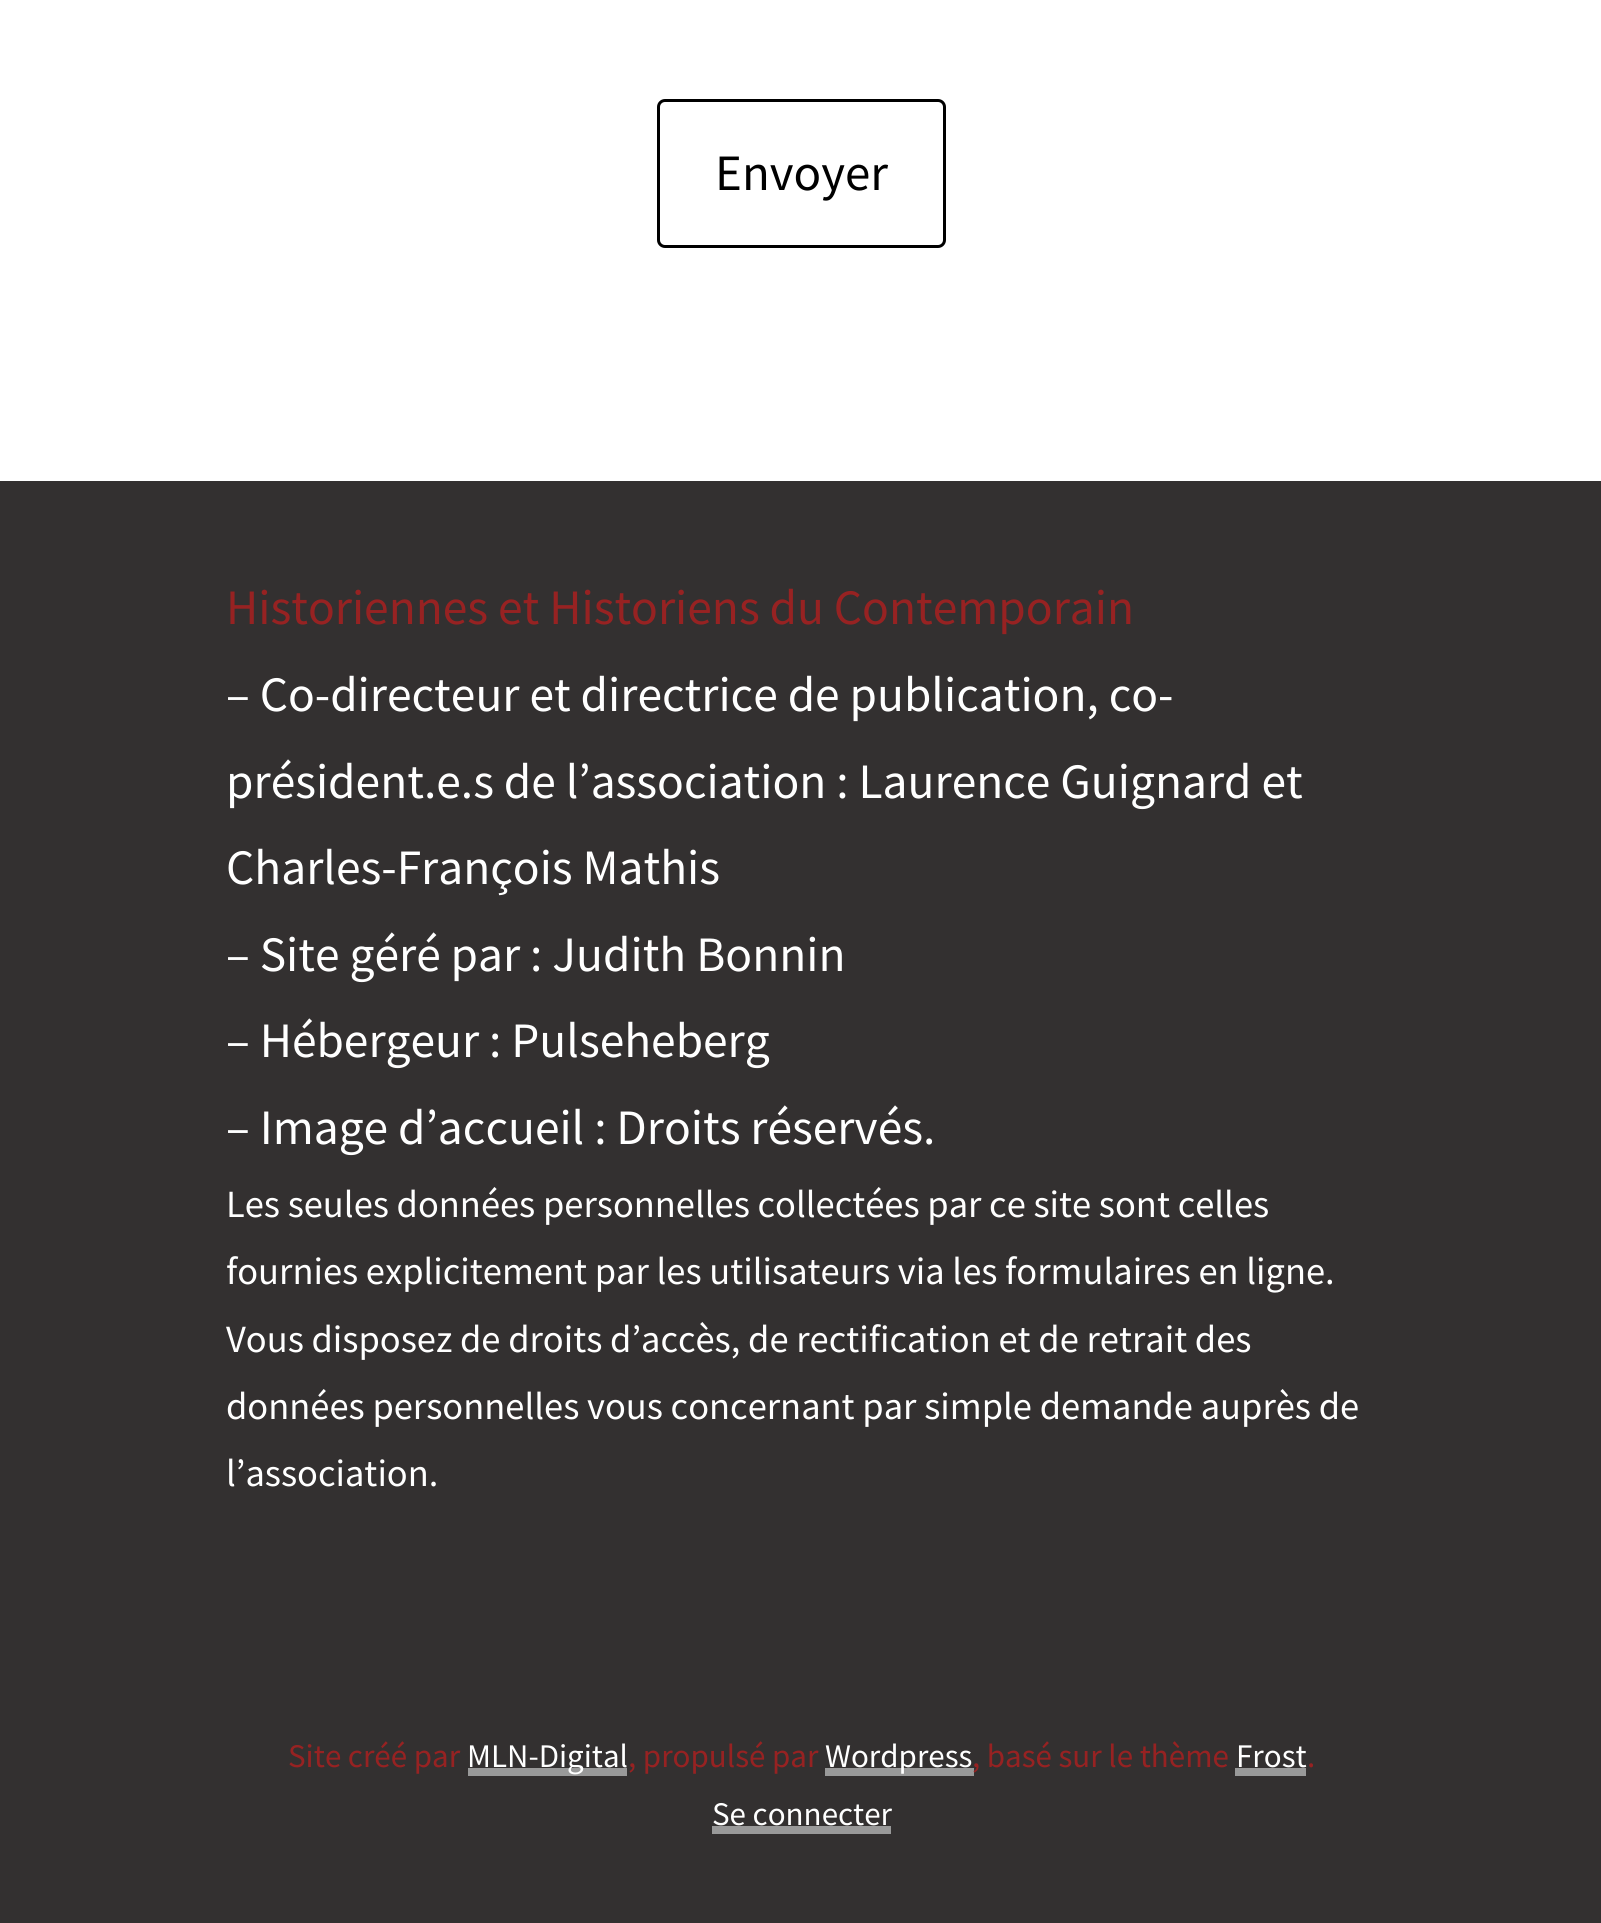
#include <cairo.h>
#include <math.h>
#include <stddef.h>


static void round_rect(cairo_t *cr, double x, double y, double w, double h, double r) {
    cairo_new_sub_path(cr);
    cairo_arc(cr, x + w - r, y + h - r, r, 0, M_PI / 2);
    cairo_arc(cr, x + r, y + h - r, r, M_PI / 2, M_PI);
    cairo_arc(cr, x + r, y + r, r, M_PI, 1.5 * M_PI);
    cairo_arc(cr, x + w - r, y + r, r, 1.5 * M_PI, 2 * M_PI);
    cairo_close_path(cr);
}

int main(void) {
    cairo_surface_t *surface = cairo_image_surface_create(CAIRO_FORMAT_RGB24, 1601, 1923);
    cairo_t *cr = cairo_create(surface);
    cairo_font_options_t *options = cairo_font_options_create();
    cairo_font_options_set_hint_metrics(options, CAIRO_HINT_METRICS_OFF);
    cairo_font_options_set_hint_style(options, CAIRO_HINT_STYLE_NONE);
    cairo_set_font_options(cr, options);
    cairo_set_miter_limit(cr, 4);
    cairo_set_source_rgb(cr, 1, 1, 1);
    cairo_paint(cr);
    round_rect(cr, 658.5, 100.5, 286, 146, 6.5);
    cairo_set_source_rgb(cr, 0, 0, 0);
    cairo_set_line_width(cr, 3);
    cairo_stroke(cr);
    cairo_select_font_face(cr, "Source Sans Pro", CAIRO_FONT_SLANT_NORMAL, CAIRO_FONT_WEIGHT_NORMAL);
    cairo_set_font_size(cr, 51);
    cairo_move_to(cr, 715, 190);
    cairo_show_text(cr, "Envoyer");
    cairo_set_source_rgb(cr, 0.2, 0.188, 0.188);
    cairo_rectangle(cr, 0, 481, 1601, 1442);
    cairo_fill(cr);
    cairo_set_font_size(cr, 49.5);
    cairo_set_source_rgb(cr, 0.592, 0.133, 0.133);
    cairo_move_to(cr, 226, 624);
    cairo_show_text(cr, "Historiennes et Historiens du Contemporain");
    cairo_set_source_rgb(cr, 1, 1, 1);
    cairo_move_to(cr, 226, 711);
    cairo_show_text(cr, "– Co-directeur et directrice de publication, co-");
    cairo_move_to(cr, 226, 798);
    cairo_show_text(cr, "président.e.s de l’association : Laurence Guignard et");
    cairo_move_to(cr, 226, 884);
    cairo_show_text(cr, "Charles-François Mathis");
    cairo_move_to(cr, 226, 971);
    cairo_show_text(cr, "– Site géré par : Judith Bonnin");
    cairo_move_to(cr, 226, 1057);
    cairo_show_text(cr, "– Hébergeur : Pulseheberg");
    cairo_move_to(cr, 226, 1144);
    cairo_show_text(cr, "– Image d’accueil : Droits réservés.");
    cairo_set_font_size(cr, 38.5);
    cairo_move_to(cr, 226, 1217);
    cairo_show_text(cr, "Les seules données personnelles collectées par ce site sont celles");
    cairo_move_to(cr, 226, 1284);
    cairo_show_text(cr, "fournies explicitement par les utilisateurs via les formulaires en ligne.");
    cairo_move_to(cr, 226, 1352);
    cairo_show_text(cr, "Vous disposez de droits d’accès, de rectification et de retrait des");
    cairo_move_to(cr, 226, 1419);
    cairo_show_text(cr, "données personnelles vous concernant par simple demande auprès de");
    cairo_move_to(cr, 226, 1486);
    cairo_show_text(cr, "l’association.");
    cairo_set_font_size(cr, 33);
    cairo_set_source_rgb(cr, 0.592, 0.133, 0.133);
    cairo_move_to(cr, 288, 1767);
    cairo_show_text(cr, "Site créé par");
    cairo_set_source_rgb(cr, 0.6, 0.6, 0.6);
    cairo_rectangle(cr, 468, 1768, 159, 8);
    cairo_fill(cr);
    cairo_set_source_rgb(cr, 1, 1, 1);
    cairo_move_to(cr, 467, 1767);
    cairo_show_text(cr, "MLN-Digital");
    cairo_set_source_rgb(cr, 0.592, 0.133, 0.133);
    cairo_move_to(cr, 628, 1767);
    cairo_show_text(cr, ", propulsé par");
    cairo_set_source_rgb(cr, 0.6, 0.6, 0.6);
    cairo_rectangle(cr, 825, 1768, 149, 8);
    cairo_fill(cr);
    cairo_set_source_rgb(cr, 1, 1, 1);
    cairo_move_to(cr, 825, 1767);
    cairo_show_text(cr, "Wordpress");
    cairo_set_source_rgb(cr, 0.592, 0.133, 0.133);
    cairo_move_to(cr, 972, 1767);
    cairo_show_text(cr, ", basé sur le thème");
    cairo_set_source_rgb(cr, 1, 1, 1);
    cairo_move_to(cr, 1236, 1767);
    cairo_show_text(cr, "Frost");
    cairo_set_source_rgb(cr, 0.6, 0.6, 0.6);
    cairo_rectangle(cr, 1235, 1768, 71, 8);
    cairo_fill(cr);
    cairo_set_source_rgb(cr, 0.592, 0.133, 0.133);
    cairo_move_to(cr, 1307, 1767);
    cairo_show_text(cr, ".");
    cairo_set_source_rgb(cr, 1, 1, 1);
    cairo_move_to(cr, 712, 1825);
    cairo_show_text(cr, "Se connecter");
    cairo_set_source_rgb(cr, 0.6, 0.6, 0.6);
    cairo_rectangle(cr, 712, 1826, 179, 8);
    cairo_fill(cr);
    cairo_surface_write_to_png(surface, "page.png");
    cairo_font_options_destroy(options);
    cairo_destroy(cr);
    cairo_surface_destroy(surface);
    return 0;
}
